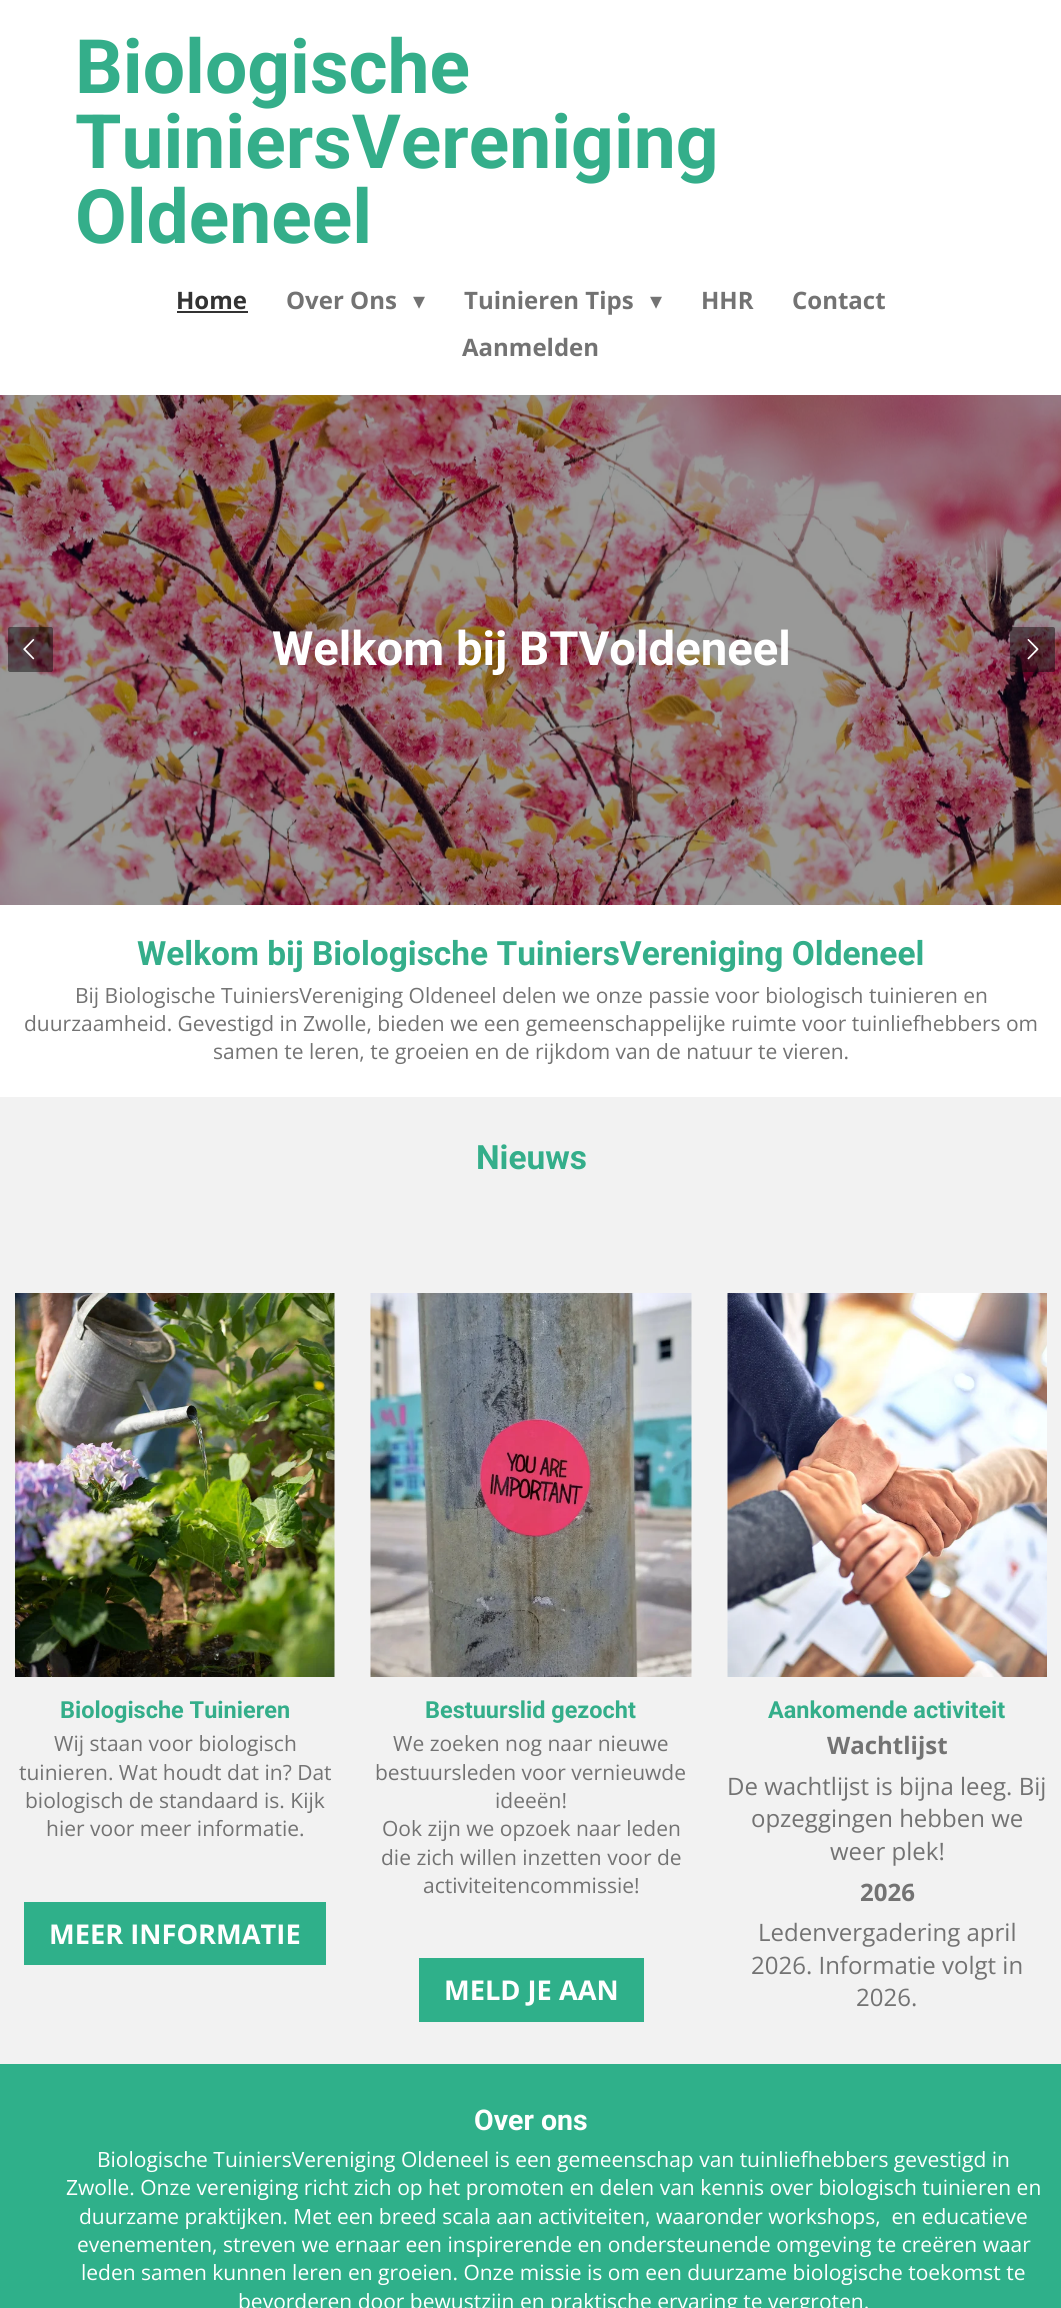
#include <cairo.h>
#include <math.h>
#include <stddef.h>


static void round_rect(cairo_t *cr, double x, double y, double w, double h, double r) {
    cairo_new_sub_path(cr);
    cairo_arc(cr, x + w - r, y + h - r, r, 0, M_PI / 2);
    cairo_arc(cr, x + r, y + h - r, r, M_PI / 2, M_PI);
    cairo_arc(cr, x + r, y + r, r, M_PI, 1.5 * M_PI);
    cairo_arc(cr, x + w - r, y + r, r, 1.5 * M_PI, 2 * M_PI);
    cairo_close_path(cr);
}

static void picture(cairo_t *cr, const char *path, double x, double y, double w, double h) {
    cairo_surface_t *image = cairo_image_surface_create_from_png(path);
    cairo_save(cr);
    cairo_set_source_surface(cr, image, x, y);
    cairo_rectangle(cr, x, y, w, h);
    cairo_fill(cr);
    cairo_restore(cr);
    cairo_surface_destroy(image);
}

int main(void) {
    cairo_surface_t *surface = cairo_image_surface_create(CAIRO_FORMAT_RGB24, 1061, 2308);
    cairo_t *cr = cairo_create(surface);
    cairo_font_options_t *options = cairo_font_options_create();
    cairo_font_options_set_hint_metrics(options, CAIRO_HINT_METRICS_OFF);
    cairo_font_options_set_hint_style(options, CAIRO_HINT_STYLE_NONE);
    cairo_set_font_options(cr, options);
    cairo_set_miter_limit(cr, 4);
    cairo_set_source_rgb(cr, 1, 1, 1);
    cairo_paint(cr);
    cairo_select_font_face(cr, "Roboto", CAIRO_FONT_SLANT_NORMAL, CAIRO_FONT_WEIGHT_BOLD);
    cairo_set_font_size(cr, 75);
    cairo_set_source_rgb(cr, 0.204, 0.682, 0.541);
    cairo_move_to(cr, 75, 93);
    cairo_show_text(cr, "Biologische");
    cairo_move_to(cr, 75, 168);
    cairo_show_text(cr, "TuiniersVereniging");
    cairo_move_to(cr, 75, 243);
    cairo_show_text(cr, "Oldeneel");
    cairo_select_font_face(cr, "Open Sans", CAIRO_FONT_SLANT_NORMAL, CAIRO_FONT_WEIGHT_BOLD);
    cairo_set_font_size(cr, 24);
    cairo_set_source_rgb(cr, 0.2, 0.2, 0.2);
    cairo_move_to(cr, 176, 309);
    cairo_show_text(cr, "Home");
    cairo_rectangle(cr, 177, 311, 71, 2);
    cairo_fill(cr);
    cairo_set_source_rgb(cr, 0.451, 0.451, 0.451);
    cairo_move_to(cr, 286, 309);
    cairo_show_text(cr, "Over Ons");
    cairo_select_font_face(cr, "DejaVu Sans", CAIRO_FONT_SLANT_NORMAL, CAIRO_FONT_WEIGHT_NORMAL);
    cairo_move_to(cr, 413, 309);
    cairo_show_text(cr, "▾");
    cairo_select_font_face(cr, "Open Sans", CAIRO_FONT_SLANT_NORMAL, CAIRO_FONT_WEIGHT_BOLD);
    cairo_move_to(cr, 464, 309);
    cairo_show_text(cr, "Tuinieren Tips");
    cairo_select_font_face(cr, "DejaVu Sans", CAIRO_FONT_SLANT_NORMAL, CAIRO_FONT_WEIGHT_NORMAL);
    cairo_move_to(cr, 650, 309);
    cairo_show_text(cr, "▾");
    cairo_select_font_face(cr, "Open Sans", CAIRO_FONT_SLANT_NORMAL, CAIRO_FONT_WEIGHT_BOLD);
    cairo_move_to(cr, 701, 309);
    cairo_show_text(cr, "HHR");
    cairo_move_to(cr, 792, 309);
    cairo_show_text(cr, "Contact");
    cairo_move_to(cr, 462, 356);
    cairo_show_text(cr, "Aanmelden");
    picture(cr, "img3.png", 0, 395, 1061, 510);
    cairo_set_source_rgba(cr, 0.059, 0.059, 0.059, 0.5);
    round_rect(cr, 8, 627, 45, 45, 2);
    cairo_fill(cr);
    picture(cr, "img1.png", 23, 639, 12, 21);
    round_rect(cr, 1010, 627, 45, 45, 2);
    cairo_fill(cr);
    picture(cr, "img2.png", 1027, 639, 12, 21);
    cairo_select_font_face(cr, "Roboto", CAIRO_FONT_SLANT_NORMAL, CAIRO_FONT_WEIGHT_BOLD);
    cairo_set_font_size(cr, 47.25);
    cairo_set_source_rgb(cr, 1, 1, 1);
    cairo_move_to(cr, 272, 665);
    cairo_show_text(cr, "Welkom bij BTVoldeneel");
    cairo_set_font_size(cr, 33.45);
    cairo_set_source_rgb(cr, 0.204, 0.682, 0.541);
    cairo_move_to(cr, 137, 965);
    cairo_show_text(cr, "Welkom bij Biologische TuiniersVereniging Oldeneel");
    cairo_select_font_face(cr, "Open Sans", CAIRO_FONT_SLANT_NORMAL, CAIRO_FONT_WEIGHT_NORMAL);
    cairo_set_font_size(cr, 21);
    cairo_set_source_rgb(cr, 0.451, 0.451, 0.451);
    cairo_move_to(cr, 75, 1003);
    cairo_show_text(cr, "Bij Biologische TuiniersVereniging Oldeneel delen we onze passie voor biologisch tuinieren en");
    cairo_move_to(cr, 24, 1031);
    cairo_show_text(cr, "duurzaamheid. Gevestigd in Zwolle, bieden we een gemeenschappelijke ruimte voor tuinliefhebbers om");
    cairo_move_to(cr, 213, 1059);
    cairo_show_text(cr, "samen te leren, te groeien en de rijkdom van de natuur te vieren.");
    cairo_set_source_rgb(cr, 0.949, 0.949, 0.949);
    cairo_rectangle(cr, 0, 1097, 1061, 967);
    cairo_fill(cr);
    cairo_select_font_face(cr, "Roboto", CAIRO_FONT_SLANT_NORMAL, CAIRO_FONT_WEIGHT_BOLD);
    cairo_set_font_size(cr, 33.45);
    cairo_set_source_rgb(cr, 0.204, 0.682, 0.541);
    cairo_move_to(cr, 476, 1169);
    cairo_show_text(cr, "Nieuws");
    picture(cr, "img4.png", 15, 1293, 320, 384);
    cairo_set_font_size(cr, 23.5);
    cairo_move_to(cr, 60, 1718);
    cairo_show_text(cr, "Biologische Tuinieren");
    cairo_select_font_face(cr, "Open Sans", CAIRO_FONT_SLANT_NORMAL, CAIRO_FONT_WEIGHT_NORMAL);
    cairo_set_font_size(cr, 21);
    cairo_set_source_rgb(cr, 0.451, 0.451, 0.451);
    cairo_move_to(cr, 54, 1751);
    cairo_show_text(cr, "Wij staan voor biologisch");
    cairo_move_to(cr, 19, 1780);
    cairo_show_text(cr, "tuinieren. Wat houdt dat in? Dat");
    cairo_move_to(cr, 25, 1808);
    cairo_show_text(cr, "biologisch de standaard is. Kijk");
    cairo_move_to(cr, 46, 1836);
    cairo_show_text(cr, "hier voor meer informatie.");
    cairo_set_source_rgb(cr, 0.184, 0.69, 0.541);
    cairo_rectangle(cr, 24, 1902, 302, 63);
    cairo_fill(cr);
    cairo_select_font_face(cr, "Open Sans", CAIRO_FONT_SLANT_NORMAL, CAIRO_FONT_WEIGHT_BOLD);
    cairo_set_font_size(cr, 27.25);
    cairo_set_source_rgb(cr, 1, 1, 1);
    cairo_move_to(cr, 49, 1944);
    cairo_show_text(cr, "MEER INFORMATIE");
    picture(cr, "img5.png", 370, 1293, 322, 384);
    cairo_select_font_face(cr, "Roboto", CAIRO_FONT_SLANT_NORMAL, CAIRO_FONT_WEIGHT_BOLD);
    cairo_set_font_size(cr, 23.5);
    cairo_set_source_rgb(cr, 0.204, 0.682, 0.541);
    cairo_move_to(cr, 425, 1718);
    cairo_show_text(cr, "Bestuurslid gezocht");
    cairo_select_font_face(cr, "Open Sans", CAIRO_FONT_SLANT_NORMAL, CAIRO_FONT_WEIGHT_NORMAL);
    cairo_set_font_size(cr, 21);
    cairo_set_source_rgb(cr, 0.451, 0.451, 0.451);
    cairo_move_to(cr, 393, 1751);
    cairo_show_text(cr, "We zoeken nog naar nieuwe");
    cairo_move_to(cr, 375, 1780);
    cairo_show_text(cr, "bestuursleden voor vernieuwde");
    cairo_move_to(cr, 495, 1808);
    cairo_show_text(cr, "ideeën!");
    cairo_move_to(cr, 382, 1836);
    cairo_show_text(cr, "Ook zijn we opzoek naar leden");
    cairo_move_to(cr, 381, 1865);
    cairo_show_text(cr, "die zich willen inzetten voor de");
    cairo_move_to(cr, 423, 1893);
    cairo_show_text(cr, "activiteitencommissie!");
    cairo_set_source_rgb(cr, 0.184, 0.69, 0.541);
    cairo_rectangle(cr, 419, 1958, 225, 64);
    cairo_fill(cr);
    cairo_select_font_face(cr, "Open Sans", CAIRO_FONT_SLANT_NORMAL, CAIRO_FONT_WEIGHT_BOLD);
    cairo_set_font_size(cr, 27.25);
    cairo_set_source_rgb(cr, 1, 1, 1);
    cairo_move_to(cr, 444, 2000);
    cairo_show_text(cr, "MELD JE AAN");
    picture(cr, "img6.png", 727, 1293, 320, 384);
    cairo_select_font_face(cr, "Roboto", CAIRO_FONT_SLANT_NORMAL, CAIRO_FONT_WEIGHT_BOLD);
    cairo_set_font_size(cr, 23.5);
    cairo_set_source_rgb(cr, 0.204, 0.682, 0.541);
    cairo_move_to(cr, 768, 1718);
    cairo_show_text(cr, "Aankomende activiteit");
    cairo_select_font_face(cr, "Open Sans", CAIRO_FONT_SLANT_NORMAL, CAIRO_FONT_WEIGHT_BOLD);
    cairo_set_font_size(cr, 24);
    cairo_set_source_rgb(cr, 0.451, 0.451, 0.451);
    cairo_move_to(cr, 827, 1754);
    cairo_show_text(cr, "Wachtlijst");
    cairo_select_font_face(cr, "Open Sans", CAIRO_FONT_SLANT_NORMAL, CAIRO_FONT_WEIGHT_NORMAL);
    cairo_move_to(cr, 727, 1795);
    cairo_show_text(cr, "De wachtlijst is bijna leeg. Bij");
    cairo_move_to(cr, 751, 1827);
    cairo_show_text(cr, "opzeggingen hebben we");
    cairo_move_to(cr, 830, 1860);
    cairo_show_text(cr, "weer plek!");
    cairo_select_font_face(cr, "Open Sans", CAIRO_FONT_SLANT_NORMAL, CAIRO_FONT_WEIGHT_BOLD);
    cairo_move_to(cr, 860, 1901);
    cairo_show_text(cr, "2026");
    cairo_select_font_face(cr, "Open Sans", CAIRO_FONT_SLANT_NORMAL, CAIRO_FONT_WEIGHT_NORMAL);
    cairo_move_to(cr, 758, 1941);
    cairo_show_text(cr, "Ledenvergadering april");
    cairo_move_to(cr, 751, 1974);
    cairo_show_text(cr, "2026. Informatie volgt in");
    cairo_move_to(cr, 856, 2006);
    cairo_show_text(cr, "2026.");
    cairo_set_source_rgb(cr, 0.184, 0.69, 0.541);
    cairo_rectangle(cr, 0, 2064, 1061, 244);
    cairo_fill(cr);
    cairo_select_font_face(cr, "Roboto", CAIRO_FONT_SLANT_NORMAL, CAIRO_FONT_WEIGHT_BOLD);
    cairo_set_font_size(cr, 28.5);
    cairo_set_source_rgb(cr, 1, 1, 1);
    cairo_move_to(cr, 474, 2130);
    cairo_show_text(cr, "Over ons");
    cairo_select_font_face(cr, "Open Sans", CAIRO_FONT_SLANT_NORMAL, CAIRO_FONT_WEIGHT_NORMAL);
    cairo_set_font_size(cr, 21);
    cairo_move_to(cr, 97, 2167);
    cairo_show_text(cr, "Biologische TuiniersVereniging Oldeneel is een gemeenschap van tuinliefhebbers gevestigd in");
    cairo_move_to(cr, 66, 2195);
    cairo_show_text(cr, "Zwolle. Onze vereniging richt zich op het promoten en delen van kennis over biologisch tuinieren en");
    cairo_move_to(cr, 79, 2224);
    cairo_show_text(cr, "duurzame praktijken. Met een breed scala aan activiteiten, waaronder workshops,  en educatieve");
    cairo_move_to(cr, 77, 2252);
    cairo_show_text(cr, "evenementen, streven we ernaar een inspirerende en ondersteunende omgeving te creëren waar");
    cairo_move_to(cr, 81, 2280);
    cairo_show_text(cr, "leden samen kunnen leren en groeien. Onze missie is om een duurzame biologische toekomst te");
    cairo_move_to(cr, 238, 2309);
    cairo_show_text(cr, "bevorderen door bewustzijn en praktische ervaring te vergroten.");
    cairo_surface_write_to_png(surface, "page.png");
    cairo_font_options_destroy(options);
    cairo_destroy(cr);
    cairo_surface_destroy(surface);
    return 0;
}
